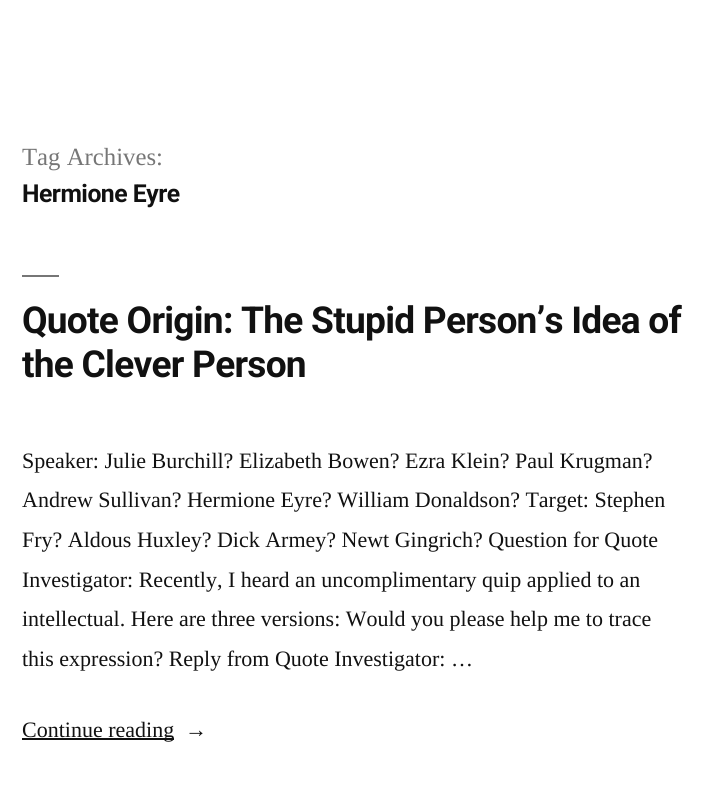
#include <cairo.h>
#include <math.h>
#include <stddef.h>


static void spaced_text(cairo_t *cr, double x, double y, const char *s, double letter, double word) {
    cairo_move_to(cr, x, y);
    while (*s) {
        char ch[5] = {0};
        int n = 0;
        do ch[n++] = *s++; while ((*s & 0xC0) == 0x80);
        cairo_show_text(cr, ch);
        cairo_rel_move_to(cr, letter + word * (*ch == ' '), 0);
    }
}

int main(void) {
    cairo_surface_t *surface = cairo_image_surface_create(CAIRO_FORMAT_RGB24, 704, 795);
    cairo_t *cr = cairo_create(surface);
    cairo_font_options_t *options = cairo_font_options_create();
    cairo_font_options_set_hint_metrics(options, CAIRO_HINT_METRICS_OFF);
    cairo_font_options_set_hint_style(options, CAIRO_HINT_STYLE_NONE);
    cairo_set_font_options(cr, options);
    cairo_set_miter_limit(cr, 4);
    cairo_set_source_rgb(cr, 1, 1, 1);
    cairo_paint(cr);
    cairo_select_font_face(cr, "Liberation Serif", CAIRO_FONT_SLANT_NORMAL, CAIRO_FONT_WEIGHT_NORMAL);
    cairo_set_font_size(cr, 24.75);
    cairo_set_source_rgb(cr, 0.463, 0.463, 0.463);
    cairo_move_to(cr, 22, 165);
    cairo_show_text(cr, "Tag Archives:");
    cairo_select_font_face(cr, "Roboto", CAIRO_FONT_SLANT_NORMAL, CAIRO_FONT_WEIGHT_BOLD);
    cairo_set_source_rgb(cr, 0.067, 0.067, 0.067);
    spaced_text(cr, 22, 202, "Hermione Eyre", -0.5, 0);
    cairo_set_source_rgb(cr, 0.463, 0.463, 0.463);
    cairo_rectangle(cr, 22, 275, 37, 2);
    cairo_fill(cr);
    cairo_set_font_size(cr, 37.1);
    cairo_set_source_rgb(cr, 0.067, 0.067, 0.067);
    spaced_text(cr, 22, 333, "Quote Origin: The Stupid Person’s Idea of", -0.75, 0);
    spaced_text(cr, 22, 377, "the Clever Person", -0.75, 0);
    cairo_select_font_face(cr, "Liberation Serif", CAIRO_FONT_SLANT_NORMAL, CAIRO_FONT_WEIGHT_NORMAL);
    cairo_set_font_size(cr, 22);
    cairo_move_to(cr, 22, 468);
    cairo_show_text(cr, "Speaker: Julie Burchill? Elizabeth Bowen? Ezra Klein? Paul Krugman?");
    cairo_move_to(cr, 22, 507);
    cairo_show_text(cr, "Andrew Sullivan? Hermione Eyre? William Donaldson? Target: Stephen");
    cairo_move_to(cr, 22, 547);
    cairo_show_text(cr, "Fry? Aldous Huxley? Dick Armey? Newt Gingrich? Question for Quote");
    cairo_move_to(cr, 22, 587);
    cairo_show_text(cr, "Investigator: Recently, I heard an uncomplimentary quip applied to an");
    cairo_move_to(cr, 22, 626);
    cairo_show_text(cr, "intellectual. Here are three versions: Would you please help me to trace");
    cairo_move_to(cr, 22, 666);
    cairo_show_text(cr, "this expression? Reply from Quote Investigator: …");
    cairo_rectangle(cr, 22, 738, 152, 2);
    cairo_fill(cr);
    cairo_move_to(cr, 22, 737);
    cairo_show_text(cr, "Continue reading");
    cairo_move_to(cr, 185, 737);
    cairo_show_text(cr, "→");
    cairo_surface_write_to_png(surface, "page.png");
    cairo_font_options_destroy(options);
    cairo_destroy(cr);
    cairo_surface_destroy(surface);
    return 0;
}
